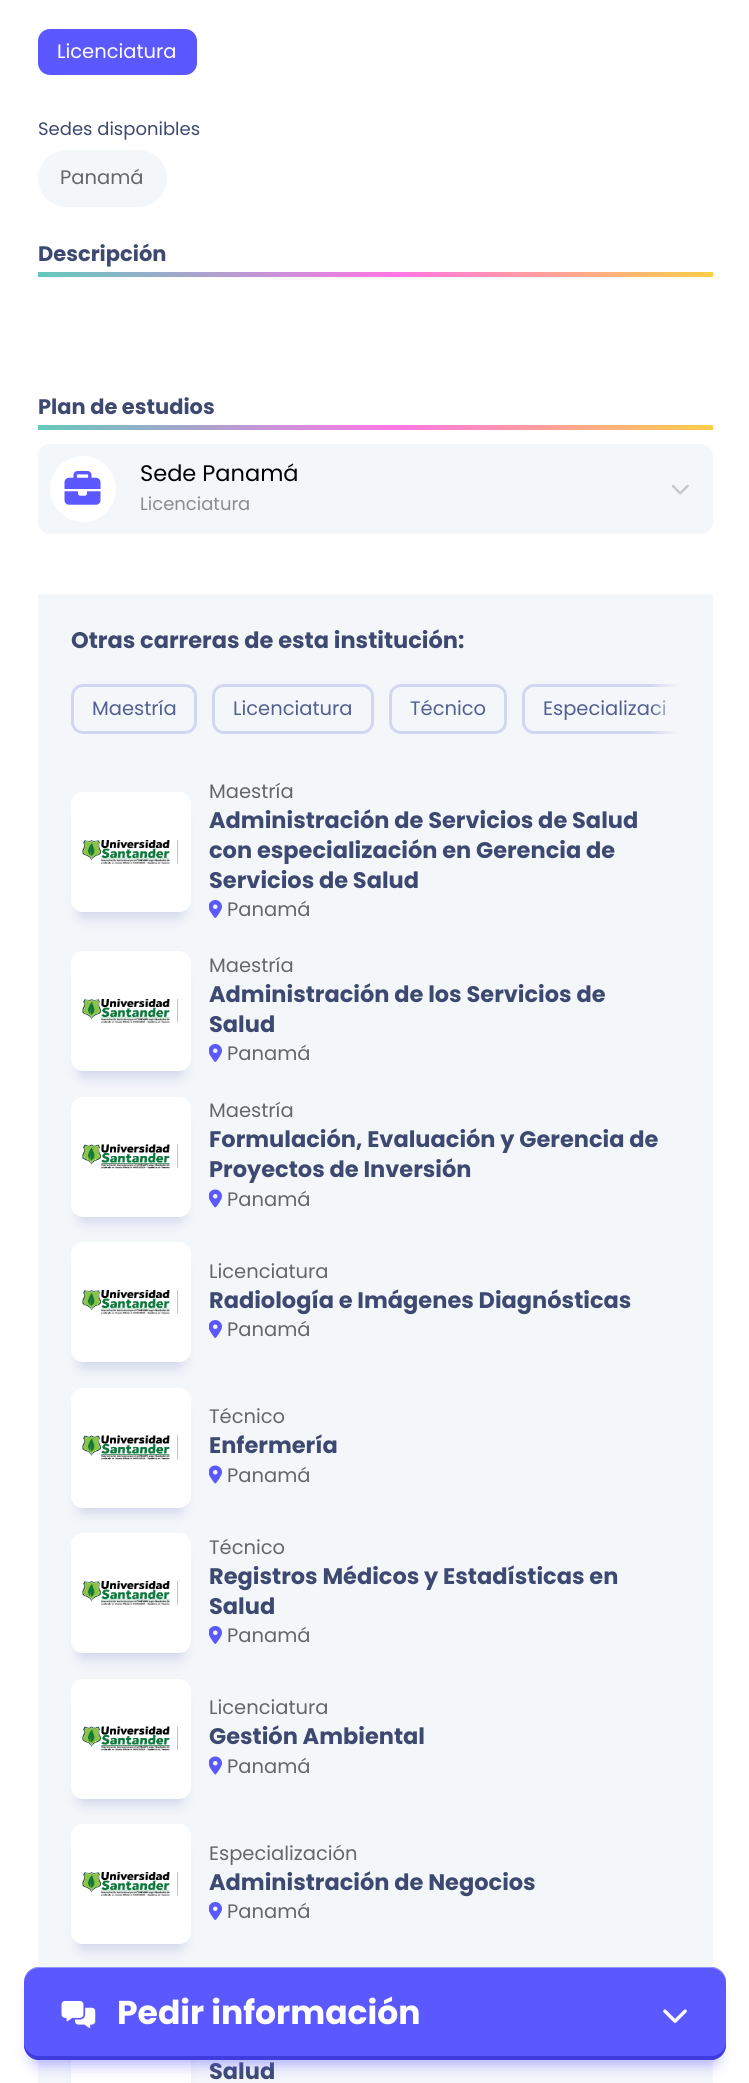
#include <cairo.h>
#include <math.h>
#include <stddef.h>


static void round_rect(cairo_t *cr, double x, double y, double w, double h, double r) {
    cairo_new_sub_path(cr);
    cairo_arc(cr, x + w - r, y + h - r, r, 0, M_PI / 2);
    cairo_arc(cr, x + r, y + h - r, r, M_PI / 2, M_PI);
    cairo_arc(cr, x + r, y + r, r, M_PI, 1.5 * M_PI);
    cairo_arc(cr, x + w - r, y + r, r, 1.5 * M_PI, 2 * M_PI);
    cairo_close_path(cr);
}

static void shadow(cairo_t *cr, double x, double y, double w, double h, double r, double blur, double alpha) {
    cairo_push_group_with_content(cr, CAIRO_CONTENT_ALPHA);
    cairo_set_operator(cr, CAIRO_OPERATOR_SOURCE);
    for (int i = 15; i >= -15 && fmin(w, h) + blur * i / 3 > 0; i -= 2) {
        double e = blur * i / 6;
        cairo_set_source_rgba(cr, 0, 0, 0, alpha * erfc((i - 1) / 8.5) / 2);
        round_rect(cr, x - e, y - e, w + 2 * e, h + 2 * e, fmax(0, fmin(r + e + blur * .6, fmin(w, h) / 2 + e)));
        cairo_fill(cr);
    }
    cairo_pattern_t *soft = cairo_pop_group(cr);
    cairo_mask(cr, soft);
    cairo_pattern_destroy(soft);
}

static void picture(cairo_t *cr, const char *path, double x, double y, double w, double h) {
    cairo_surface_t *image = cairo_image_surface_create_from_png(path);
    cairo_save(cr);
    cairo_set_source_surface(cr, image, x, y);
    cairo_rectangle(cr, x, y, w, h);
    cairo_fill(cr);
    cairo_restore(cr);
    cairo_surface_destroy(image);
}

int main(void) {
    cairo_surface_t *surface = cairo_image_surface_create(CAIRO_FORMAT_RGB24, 749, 2083);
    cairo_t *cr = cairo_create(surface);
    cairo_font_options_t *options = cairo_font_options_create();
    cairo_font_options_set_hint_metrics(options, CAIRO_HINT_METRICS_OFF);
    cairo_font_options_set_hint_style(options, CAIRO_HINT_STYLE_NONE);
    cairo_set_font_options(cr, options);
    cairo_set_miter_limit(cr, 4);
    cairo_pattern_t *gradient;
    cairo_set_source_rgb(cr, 1, 1, 1);
    cairo_paint(cr);
    cairo_set_source_rgb(cr, 0.361, 0.345, 1);
    round_rect(cr, 39, 30, 157, 44, 11);
    cairo_fill_preserve(cr);
    cairo_stroke(cr);
    cairo_select_font_face(cr, "Poppins", CAIRO_FONT_SLANT_NORMAL, CAIRO_FONT_WEIGHT_NORMAL);
    cairo_set_font_size(cr, 19.5);
    cairo_set_source_rgb(cr, 1, 1, 1);
    cairo_move_to(cr, 57, 58);
    cairo_show_text(cr, "Licenciatura");
    cairo_set_font_size(cr, 18);
    cairo_set_source_rgb(cr, 0.239, 0.286, 0.443);
    cairo_move_to(cr, 38, 135);
    cairo_show_text(cr, "Sedes disponibles");
    cairo_set_source_rgb(cr, 0.953, 0.965, 0.98);
    round_rect(cr, 39, 151, 127, 55, 27.5);
    cairo_fill_preserve(cr);
    cairo_stroke(cr);
    cairo_set_font_size(cr, 19.5);
    cairo_set_source_rgb(cr, 0.4, 0.4, 0.4);
    cairo_move_to(cr, 60, 184);
    cairo_show_text(cr, "Panamá");
    cairo_select_font_face(cr, "Poppins", CAIRO_FONT_SLANT_NORMAL, CAIRO_FONT_WEIGHT_BOLD);
    cairo_set_font_size(cr, 21);
    cairo_set_source_rgb(cr, 0.239, 0.286, 0.443);
    cairo_move_to(cr, 38, 261);
    cairo_show_text(cr, "Descripción");
    gradient = cairo_pattern_create_linear(211, 444, 539, 104);
    cairo_pattern_add_color_stop_rgba(gradient, 0, 0.388, 0.788, 0.737, 1);
    cairo_pattern_add_color_stop_rgba(gradient, 0.53, 1, 0.463, 0.898, 1);
    cairo_pattern_add_color_stop_rgba(gradient, 1, 1, 0.808, 0.278, 1);
    cairo_set_source(cr, gradient);
    cairo_pattern_destroy(gradient);
    cairo_rectangle(cr, 38, 272, 675, 5);
    cairo_fill(cr);
    cairo_set_source_rgb(cr, 0.239, 0.286, 0.443);
    cairo_move_to(cr, 38, 414);
    cairo_show_text(cr, "Plan de estudios");
    gradient = cairo_pattern_create_linear(211, 597, 539, 257);
    cairo_pattern_add_color_stop_rgba(gradient, 0, 0.388, 0.788, 0.737, 1);
    cairo_pattern_add_color_stop_rgba(gradient, 0.53, 1, 0.463, 0.898, 1);
    cairo_pattern_add_color_stop_rgba(gradient, 1, 1, 0.808, 0.278, 1);
    cairo_set_source(cr, gradient);
    cairo_pattern_destroy(gradient);
    cairo_rectangle(cr, 38, 425, 675, 5);
    cairo_fill(cr);
    cairo_set_source_rgb(cr, 0.953, 0.965, 0.98);
    round_rect(cr, 38, 444, 675, 90, 12);
    cairo_fill(cr);
    cairo_set_source_rgb(cr, 1, 1, 1);
    cairo_arc(cr, 83, 489, 33, 0, 2 * M_PI);
    cairo_fill(cr);
    picture(cr, "img1.png", 64, 471, 37, 34);
    cairo_select_font_face(cr, "Poppins", CAIRO_FONT_SLANT_NORMAL, CAIRO_FONT_WEIGHT_NORMAL);
    cairo_set_font_size(cr, 22.5);
    cairo_set_source_rgb(cr, 0, 0, 0);
    cairo_move_to(cr, 140, 481);
    cairo_show_text(cr, "Sede Panamá");
    cairo_set_font_size(cr, 18);
    cairo_set_source_rgb(cr, 0.549, 0.549, 0.549);
    cairo_move_to(cr, 140, 510);
    cairo_show_text(cr, "Licenciatura");
    picture(cr, "img2.png", 671, 484, 18, 11);
    cairo_set_source_rgb(cr, 0.957, 0.965, 0.98);
    cairo_rectangle(cr, 38, 594, 675, 1489);
    cairo_fill(cr);
    cairo_select_font_face(cr, "Poppins", CAIRO_FONT_SLANT_NORMAL, CAIRO_FONT_WEIGHT_BOLD);
    cairo_set_font_size(cr, 22.5);
    cairo_set_source_rgb(cr, 0.239, 0.286, 0.443);
    cairo_move_to(cr, 71, 648);
    cairo_show_text(cr, "Otras carreras de esta institución:");
    round_rect(cr, 72.5, 685.5, 123, 47, 10.5);
    cairo_set_source_rgb(cr, 0.82, 0.843, 0.941);
    cairo_set_line_width(cr, 3);
    cairo_stroke(cr);
    cairo_select_font_face(cr, "Poppins", CAIRO_FONT_SLANT_NORMAL, CAIRO_FONT_WEIGHT_NORMAL);
    cairo_set_font_size(cr, 19.5);
    cairo_set_source_rgb(cr, 0.322, 0.373, 0.576);
    cairo_move_to(cr, 92, 715);
    cairo_show_text(cr, "Maestría");
    round_rect(cr, 213.5, 685.5, 159, 47, 10.5);
    cairo_set_source_rgb(cr, 0.82, 0.843, 0.941);
    cairo_stroke(cr);
    cairo_set_source_rgb(cr, 0.322, 0.373, 0.576);
    cairo_move_to(cr, 233, 715);
    cairo_show_text(cr, "Licenciatura");
    round_rect(cr, 390.5, 685.5, 115, 47, 10.5);
    cairo_set_source_rgb(cr, 0.82, 0.843, 0.941);
    cairo_stroke(cr);
    cairo_set_source_rgb(cr, 0.322, 0.373, 0.576);
    cairo_move_to(cr, 410, 715);
    cairo_show_text(cr, "Técnico");
    cairo_save(cr);
    cairo_rectangle(cr, 71, 677, 609, 64);
    cairo_clip(cr);
    round_rect(cr, 523.5, 685.5, 188, 47, 10.5);
    cairo_set_source_rgb(cr, 0.82, 0.843, 0.941);
    cairo_stroke(cr);
    cairo_restore(cr);
    cairo_move_to(cr, 543, 715);
    cairo_show_text(cr, "Especializaci");
    gradient = cairo_pattern_create_linear(650, 709, 680, 709);
    cairo_pattern_add_color_stop_rgba(gradient, 0, 0.957, 0.965, 0.98, 0);
    cairo_pattern_add_color_stop_rgba(gradient, 1, 0.957, 0.965, 0.98, 1);
    cairo_set_source(cr, gradient);
    cairo_pattern_destroy(gradient);
    cairo_rectangle(cr, 651, 684, 29, 50);
    cairo_fill(cr);
    cairo_save(cr);
    cairo_rectangle(cr, 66, 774, 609, 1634);
    cairo_clip(cr);
    cairo_set_source_rgb(cr, 0.8, 0.824, 0.914);
    shadow(cr, 80, 815, 102, 102, 3, 7.5, 1);
    cairo_restore(cr);
    cairo_set_source_rgb(cr, 1, 1, 1);
    round_rect(cr, 71, 792, 120, 120, 12);
    cairo_fill(cr);
    picture(cr, "img3.png", 82, 840, 97, 24);
    cairo_set_source_rgb(cr, 0.4, 0.4, 0.4);
    cairo_move_to(cr, 209, 798);
    cairo_show_text(cr, "Maestría");
    cairo_select_font_face(cr, "Poppins", CAIRO_FONT_SLANT_NORMAL, CAIRO_FONT_WEIGHT_BOLD);
    cairo_set_font_size(cr, 22.5);
    cairo_set_source_rgb(cr, 0.239, 0.286, 0.443);
    cairo_move_to(cr, 209, 828);
    cairo_show_text(cr, "Administración de Servicios de Salud");
    cairo_move_to(cr, 209, 858);
    cairo_show_text(cr, "con especialización en Gerencia de");
    cairo_move_to(cr, 209, 888);
    cairo_show_text(cr, "Servicios de Salud");
    picture(cr, "img4.png", 209, 900, 13, 18);
    cairo_select_font_face(cr, "Poppins", CAIRO_FONT_SLANT_NORMAL, CAIRO_FONT_WEIGHT_NORMAL);
    cairo_set_font_size(cr, 19.5);
    cairo_set_source_rgb(cr, 0.4, 0.4, 0.4);
    cairo_move_to(cr, 227, 916);
    cairo_show_text(cr, "Panamá");
    cairo_save(cr);
    cairo_rectangle(cr, 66, 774, 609, 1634);
    cairo_clip(cr);
    cairo_set_source_rgb(cr, 0.8, 0.824, 0.914);
    shadow(cr, 80, 974, 102, 102, 3, 7.5, 1);
    cairo_restore(cr);
    cairo_set_source_rgb(cr, 1, 1, 1);
    round_rect(cr, 71, 951, 120, 120, 12);
    cairo_fill(cr);
    picture(cr, "img3.png", 82, 999, 97, 24);
    cairo_set_source_rgb(cr, 0.4, 0.4, 0.4);
    cairo_move_to(cr, 209, 972);
    cairo_show_text(cr, "Maestría");
    cairo_select_font_face(cr, "Poppins", CAIRO_FONT_SLANT_NORMAL, CAIRO_FONT_WEIGHT_BOLD);
    cairo_set_font_size(cr, 22.5);
    cairo_set_source_rgb(cr, 0.239, 0.286, 0.443);
    cairo_move_to(cr, 209, 1002);
    cairo_show_text(cr, "Administración de los Servicios de");
    cairo_move_to(cr, 209, 1032);
    cairo_show_text(cr, "Salud");
    picture(cr, "img4.png", 209, 1044, 13, 18);
    cairo_select_font_face(cr, "Poppins", CAIRO_FONT_SLANT_NORMAL, CAIRO_FONT_WEIGHT_NORMAL);
    cairo_set_font_size(cr, 19.5);
    cairo_set_source_rgb(cr, 0.4, 0.4, 0.4);
    cairo_move_to(cr, 227, 1060);
    cairo_show_text(cr, "Panamá");
    cairo_save(cr);
    cairo_rectangle(cr, 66, 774, 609, 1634);
    cairo_clip(cr);
    cairo_set_source_rgb(cr, 0.8, 0.824, 0.914);
    shadow(cr, 80, 1119, 102, 102, 3, 7.5, 1);
    cairo_restore(cr);
    cairo_set_source_rgb(cr, 1, 1, 1);
    round_rect(cr, 71, 1097, 120, 120, 12);
    cairo_fill(cr);
    picture(cr, "img5.png", 82, 1144, 97, 25);
    cairo_set_source_rgb(cr, 0.4, 0.4, 0.4);
    cairo_move_to(cr, 209, 1117);
    cairo_show_text(cr, "Maestría");
    cairo_select_font_face(cr, "Poppins", CAIRO_FONT_SLANT_NORMAL, CAIRO_FONT_WEIGHT_BOLD);
    cairo_set_font_size(cr, 22.5);
    cairo_set_source_rgb(cr, 0.239, 0.286, 0.443);
    cairo_move_to(cr, 209, 1147);
    cairo_show_text(cr, "Formulación, Evaluación y Gerencia de");
    cairo_move_to(cr, 209, 1177);
    cairo_show_text(cr, "Proyectos de Inversión");
    picture(cr, "img6.png", 209, 1189, 13, 19);
    cairo_select_font_face(cr, "Poppins", CAIRO_FONT_SLANT_NORMAL, CAIRO_FONT_WEIGHT_NORMAL);
    cairo_set_font_size(cr, 19.5);
    cairo_set_source_rgb(cr, 0.4, 0.4, 0.4);
    cairo_move_to(cr, 227, 1206);
    cairo_show_text(cr, "Panamá");
    cairo_save(cr);
    cairo_rectangle(cr, 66, 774, 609, 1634);
    cairo_clip(cr);
    cairo_set_source_rgb(cr, 0.8, 0.824, 0.914);
    shadow(cr, 80, 1265, 102, 102, 3, 7.5, 1);
    cairo_restore(cr);
    cairo_set_source_rgb(cr, 1, 1, 1);
    round_rect(cr, 71, 1242, 120, 120, 12);
    cairo_fill(cr);
    picture(cr, "img3.png", 82, 1290, 97, 24);
    cairo_set_source_rgb(cr, 0.4, 0.4, 0.4);
    cairo_move_to(cr, 209, 1278);
    cairo_show_text(cr, "Licenciatura");
    cairo_select_font_face(cr, "Poppins", CAIRO_FONT_SLANT_NORMAL, CAIRO_FONT_WEIGHT_BOLD);
    cairo_set_font_size(cr, 22.5);
    cairo_set_source_rgb(cr, 0.239, 0.286, 0.443);
    cairo_move_to(cr, 209, 1308);
    cairo_show_text(cr, "Radiología e Imágenes Diagnósticas");
    picture(cr, "img4.png", 209, 1320, 13, 18);
    cairo_select_font_face(cr, "Poppins", CAIRO_FONT_SLANT_NORMAL, CAIRO_FONT_WEIGHT_NORMAL);
    cairo_set_font_size(cr, 19.5);
    cairo_set_source_rgb(cr, 0.4, 0.4, 0.4);
    cairo_move_to(cr, 227, 1336);
    cairo_show_text(cr, "Panamá");
    cairo_save(cr);
    cairo_rectangle(cr, 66, 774, 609, 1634);
    cairo_clip(cr);
    cairo_set_source_rgb(cr, 0.8, 0.824, 0.914);
    shadow(cr, 80, 1410, 102, 102, 3, 7.5, 1);
    cairo_restore(cr);
    cairo_set_source_rgb(cr, 1, 1, 1);
    round_rect(cr, 71, 1388, 120, 120, 12);
    cairo_fill(cr);
    picture(cr, "img5.png", 82, 1435, 97, 25);
    cairo_set_source_rgb(cr, 0.4, 0.4, 0.4);
    cairo_move_to(cr, 209, 1423);
    cairo_show_text(cr, "Técnico");
    cairo_select_font_face(cr, "Poppins", CAIRO_FONT_SLANT_NORMAL, CAIRO_FONT_WEIGHT_BOLD);
    cairo_set_font_size(cr, 22.5);
    cairo_set_source_rgb(cr, 0.239, 0.286, 0.443);
    cairo_move_to(cr, 209, 1453);
    cairo_show_text(cr, "Enfermería");
    picture(cr, "img6.png", 209, 1465, 13, 19);
    cairo_select_font_face(cr, "Poppins", CAIRO_FONT_SLANT_NORMAL, CAIRO_FONT_WEIGHT_NORMAL);
    cairo_set_font_size(cr, 19.5);
    cairo_set_source_rgb(cr, 0.4, 0.4, 0.4);
    cairo_move_to(cr, 227, 1482);
    cairo_show_text(cr, "Panamá");
    cairo_save(cr);
    cairo_rectangle(cr, 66, 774, 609, 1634);
    cairo_clip(cr);
    cairo_set_source_rgb(cr, 0.8, 0.824, 0.914);
    shadow(cr, 80, 1556, 102, 102, 3, 7.5, 1);
    cairo_restore(cr);
    cairo_set_source_rgb(cr, 1, 1, 1);
    round_rect(cr, 71, 1533, 120, 120, 12);
    cairo_fill(cr);
    picture(cr, "img3.png", 82, 1581, 97, 24);
    cairo_set_source_rgb(cr, 0.4, 0.4, 0.4);
    cairo_move_to(cr, 209, 1554);
    cairo_show_text(cr, "Técnico");
    cairo_select_font_face(cr, "Poppins", CAIRO_FONT_SLANT_NORMAL, CAIRO_FONT_WEIGHT_BOLD);
    cairo_set_font_size(cr, 22.5);
    cairo_set_source_rgb(cr, 0.239, 0.286, 0.443);
    cairo_move_to(cr, 209, 1584);
    cairo_show_text(cr, "Registros Médicos y Estadísticas en");
    cairo_move_to(cr, 209, 1614);
    cairo_show_text(cr, "Salud");
    picture(cr, "img4.png", 209, 1626, 13, 18);
    cairo_select_font_face(cr, "Poppins", CAIRO_FONT_SLANT_NORMAL, CAIRO_FONT_WEIGHT_NORMAL);
    cairo_set_font_size(cr, 19.5);
    cairo_set_source_rgb(cr, 0.4, 0.4, 0.4);
    cairo_move_to(cr, 227, 1642);
    cairo_show_text(cr, "Panamá");
    cairo_save(cr);
    cairo_rectangle(cr, 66, 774, 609, 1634);
    cairo_clip(cr);
    cairo_set_source_rgb(cr, 0.8, 0.824, 0.914);
    shadow(cr, 80, 1701, 102, 102, 3, 7.5, 1);
    cairo_restore(cr);
    cairo_set_source_rgb(cr, 1, 1, 1);
    round_rect(cr, 71, 1679, 120, 120, 12);
    cairo_fill(cr);
    picture(cr, "img5.png", 82, 1726, 97, 25);
    cairo_set_source_rgb(cr, 0.4, 0.4, 0.4);
    cairo_move_to(cr, 209, 1714);
    cairo_show_text(cr, "Licenciatura");
    cairo_select_font_face(cr, "Poppins", CAIRO_FONT_SLANT_NORMAL, CAIRO_FONT_WEIGHT_BOLD);
    cairo_set_font_size(cr, 22.5);
    cairo_set_source_rgb(cr, 0.239, 0.286, 0.443);
    cairo_move_to(cr, 209, 1744);
    cairo_show_text(cr, "Gestión Ambiental");
    picture(cr, "img6.png", 209, 1756, 13, 19);
    cairo_select_font_face(cr, "Poppins", CAIRO_FONT_SLANT_NORMAL, CAIRO_FONT_WEIGHT_NORMAL);
    cairo_set_font_size(cr, 19.5);
    cairo_set_source_rgb(cr, 0.4, 0.4, 0.4);
    cairo_move_to(cr, 227, 1773);
    cairo_show_text(cr, "Panamá");
    cairo_save(cr);
    cairo_rectangle(cr, 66, 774, 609, 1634);
    cairo_clip(cr);
    cairo_set_source_rgb(cr, 0.8, 0.824, 0.914);
    shadow(cr, 80, 1847, 102, 102, 3, 7.5, 1);
    cairo_restore(cr);
    cairo_set_source_rgb(cr, 1, 1, 1);
    round_rect(cr, 71, 1824, 120, 120, 12);
    cairo_fill(cr);
    picture(cr, "img3.png", 82, 1872, 97, 24);
    cairo_set_source_rgb(cr, 0.4, 0.4, 0.4);
    cairo_move_to(cr, 209, 1860);
    cairo_show_text(cr, "Especialización");
    cairo_select_font_face(cr, "Poppins", CAIRO_FONT_SLANT_NORMAL, CAIRO_FONT_WEIGHT_BOLD);
    cairo_set_font_size(cr, 22.5);
    cairo_set_source_rgb(cr, 0.239, 0.286, 0.443);
    cairo_move_to(cr, 209, 1890);
    cairo_show_text(cr, "Administración de Negocios");
    picture(cr, "img4.png", 209, 1902, 13, 18);
    cairo_select_font_face(cr, "Poppins", CAIRO_FONT_SLANT_NORMAL, CAIRO_FONT_WEIGHT_NORMAL);
    cairo_set_font_size(cr, 19.5);
    cairo_set_source_rgb(cr, 0.4, 0.4, 0.4);
    cairo_move_to(cr, 227, 1918);
    cairo_show_text(cr, "Panamá");
    cairo_save(cr);
    cairo_rectangle(cr, 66, 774, 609, 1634);
    cairo_clip(cr);
    cairo_set_source_rgb(cr, 0.8, 0.824, 0.914);
    shadow(cr, 80, 2006, 102, 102, 3, 7.5, 1);
    cairo_restore(cr);
    cairo_set_source_rgb(cr, 1, 1, 1);
    cairo_rectangle(cr, 71, 2060, 120, 23);
    cairo_fill(cr);
    cairo_select_font_face(cr, "Poppins", CAIRO_FONT_SLANT_NORMAL, CAIRO_FONT_WEIGHT_BOLD);
    cairo_set_font_size(cr, 22.5);
    cairo_set_source_rgb(cr, 0.239, 0.286, 0.443);
    cairo_move_to(cr, 209, 2079);
    cairo_show_text(cr, "Salud");
    cairo_set_source_rgb(cr, 0.361, 0.345, 1);
    shadow(cr, 33, 1989, 684, 75, 6, 7.5, 0.5);
    cairo_set_source_rgb(cr, 0.361, 0.345, 1);
    round_rect(cr, 24, 1967, 702, 93, 15);
    cairo_fill(cr);
    cairo_set_source_rgb(cr, 0.247, 0.235, 0.867);
    cairo_new_path(cr);
    cairo_move_to(cr, 24, 2042);
    cairo_line_to(cr, 24, 2045);
    cairo_curve_to(cr, 24, 2053, 31, 2060, 39, 2060);
    cairo_line_to(cr, 711, 2060);
    cairo_curve_to(cr, 719, 2060, 726, 2053, 726, 2045);
    cairo_line_to(cr, 726, 2042);
    cairo_curve_to(cr, 726, 2050, 719, 2056, 711, 2056);
    cairo_line_to(cr, 39, 2056);
    cairo_curve_to(cr, 31, 2056, 24, 2050, 24, 2042);
    cairo_close_path(cr);
    cairo_fill(cr);
    cairo_set_source_rgb(cr, 0.588, 0.58, 1);
    cairo_new_path(cr);
    cairo_move_to(cr, 39, 1968);
    cairo_line_to(cr, 711, 1968);
    cairo_curve_to(cr, 719, 1968, 726, 1975, 726, 1983);
    cairo_line_to(cr, 726, 1982);
    cairo_curve_to(cr, 726, 1974, 719, 1967, 711, 1967);
    cairo_line_to(cr, 39, 1967);
    cairo_curve_to(cr, 31, 1967, 24, 1974, 24, 1982);
    cairo_line_to(cr, 24, 1983);
    cairo_curve_to(cr, 24, 1975, 31, 1968, 39, 1968);
    cairo_close_path(cr);
    cairo_fill(cr);
    picture(cr, "img7.png", 61, 2001, 35, 27);
    cairo_set_font_size(cr, 33);
    cairo_set_source_rgb(cr, 1, 1, 1);
    cairo_move_to(cr, 117, 2024);
    cairo_show_text(cr, "Pedir información");
    picture(cr, "img8.png", 663, 2009, 24, 14);
    cairo_surface_write_to_png(surface, "page.png");
    cairo_font_options_destroy(options);
    cairo_destroy(cr);
    cairo_surface_destroy(surface);
    return 0;
}
